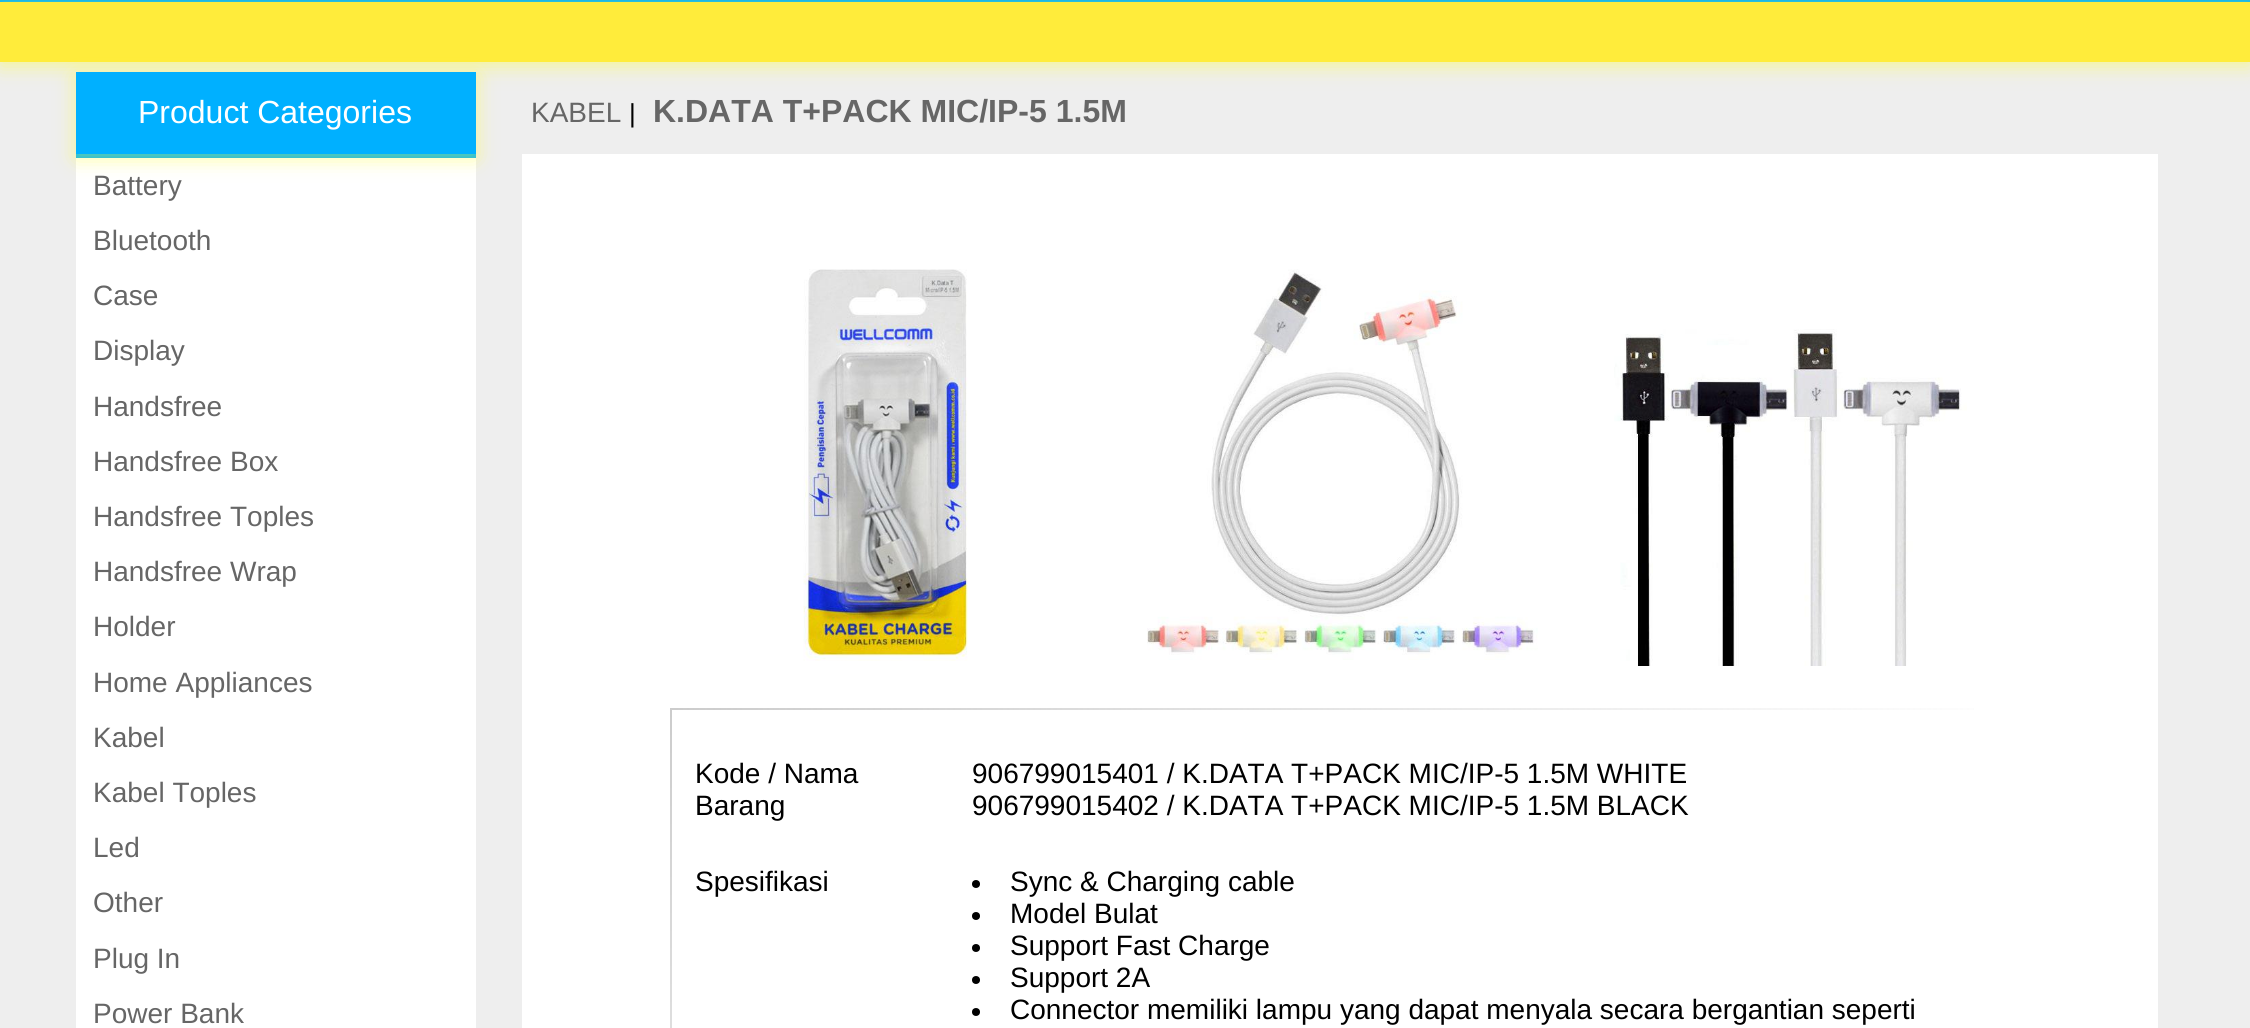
#include <cairo.h>
#include <math.h>
#include <stddef.h>


static void round_rect(cairo_t *cr, double x, double y, double w, double h, double r) {
    cairo_new_sub_path(cr);
    cairo_arc(cr, x + w - r, y + h - r, r, 0, M_PI / 2);
    cairo_arc(cr, x + r, y + h - r, r, M_PI / 2, M_PI);
    cairo_arc(cr, x + r, y + r, r, M_PI, 1.5 * M_PI);
    cairo_arc(cr, x + w - r, y + r, r, 1.5 * M_PI, 2 * M_PI);
    cairo_close_path(cr);
}

static void shadow(cairo_t *cr, double x, double y, double w, double h, double r, double blur, double alpha) {
    cairo_push_group_with_content(cr, CAIRO_CONTENT_ALPHA);
    cairo_set_operator(cr, CAIRO_OPERATOR_SOURCE);
    for (int i = 15; i >= -15 && fmin(w, h) + blur * i / 3 > 0; i -= 2) {
        double e = blur * i / 6;
        cairo_set_source_rgba(cr, 0, 0, 0, alpha * erfc((i - 1) / 8.5) / 2);
        round_rect(cr, x - e, y - e, w + 2 * e, h + 2 * e, fmax(0, fmin(r + e + blur * .6, fmin(w, h) / 2 + e)));
        cairo_fill(cr);
    }
    cairo_pattern_t *soft = cairo_pop_group(cr);
    cairo_mask(cr, soft);
    cairo_pattern_destroy(soft);
}

static void picture(cairo_t *cr, const char *path, double x, double y, double w, double h) {
    cairo_surface_t *image = cairo_image_surface_create_from_png(path);
    cairo_save(cr);
    cairo_set_source_surface(cr, image, x, y);
    cairo_rectangle(cr, x, y, w, h);
    cairo_fill(cr);
    cairo_restore(cr);
    cairo_surface_destroy(image);
}

int main(void) {
    cairo_surface_t *surface = cairo_image_surface_create(CAIRO_FORMAT_RGB24, 2250, 1028);
    cairo_t *cr = cairo_create(surface);
    cairo_font_options_t *options = cairo_font_options_create();
    cairo_font_options_set_hint_metrics(options, CAIRO_HINT_METRICS_OFF);
    cairo_font_options_set_hint_style(options, CAIRO_HINT_STYLE_NONE);
    cairo_set_font_options(cr, options);
    cairo_set_miter_limit(cr, 4);
    cairo_pattern_t *gradient;
    cairo_set_source_rgb(cr, 0.933, 0.933, 0.933);
    cairo_paint(cr);
    cairo_set_source_rgb(cr, 0, 0.69, 1);
    cairo_rectangle(cr, 0, 0, 2250, 2);
    cairo_fill(cr);
    cairo_set_source_rgb(cr, 1, 1, 0.118);
    shadow(cr, 0, 6, 2250, 60, 0, 10, 0.45);
    cairo_set_source_rgb(cr, 1, 0.922, 0.231);
    cairo_rectangle(cr, 0, 2, 2250, 60);
    cairo_fill(cr);
    cairo_set_source_rgb(cr, 0, 0.69, 1);
    cairo_rectangle(cr, 76, 154, 400, 4);
    cairo_fill(cr);
    cairo_set_source_rgb(cr, 1, 1, 1);
    cairo_rectangle(cr, 76, 158, 400, 870);
    cairo_fill(cr);
    cairo_set_source_rgb(cr, 1, 1, 0.118);
    shadow(cr, 76, 76, 400, 82, 0, 10, 0.45);
    cairo_set_source_rgb(cr, 0, 0.69, 1);
    cairo_rectangle(cr, 76, 72, 400, 82);
    cairo_fill(cr);
    cairo_select_font_face(cr, "Liberation Sans", CAIRO_FONT_SLANT_NORMAL, CAIRO_FONT_WEIGHT_NORMAL);
    cairo_set_font_size(cr, 32);
    cairo_set_source_rgb(cr, 1, 1, 1);
    cairo_move_to(cr, 138, 123);
    cairo_show_text(cr, "Product Categories");
    cairo_set_font_size(cr, 28);
    cairo_set_source_rgb(cr, 0.4, 0.4, 0.4);
    cairo_move_to(cr, 93, 195);
    cairo_show_text(cr, "Battery");
    cairo_move_to(cr, 93, 250);
    cairo_show_text(cr, "Bluetooth");
    cairo_move_to(cr, 93, 305);
    cairo_show_text(cr, "Case");
    cairo_move_to(cr, 93, 360);
    cairo_show_text(cr, "Display");
    cairo_move_to(cr, 93, 416);
    cairo_show_text(cr, "Handsfree");
    cairo_move_to(cr, 93, 471);
    cairo_show_text(cr, "Handsfree Box");
    cairo_move_to(cr, 93, 526);
    cairo_show_text(cr, "Handsfree Toples");
    cairo_move_to(cr, 93, 581);
    cairo_show_text(cr, "Handsfree Wrap");
    cairo_move_to(cr, 93, 636);
    cairo_show_text(cr, "Holder");
    cairo_move_to(cr, 93, 692);
    cairo_show_text(cr, "Home Appliances");
    cairo_move_to(cr, 93, 747);
    cairo_show_text(cr, "Kabel");
    cairo_move_to(cr, 93, 802);
    cairo_show_text(cr, "Kabel Toples");
    cairo_move_to(cr, 93, 857);
    cairo_show_text(cr, "Led");
    cairo_move_to(cr, 93, 912);
    cairo_show_text(cr, "Other");
    cairo_move_to(cr, 93, 968);
    cairo_show_text(cr, "Plug In");
    cairo_move_to(cr, 93, 1023);
    cairo_show_text(cr, "Power Bank");
    cairo_move_to(cr, 531, 122);
    cairo_show_text(cr, "KABEL");
    cairo_set_font_size(cr, 26);
    cairo_set_source_rgb(cr, 0, 0, 0);
    cairo_move_to(cr, 629, 122);
    cairo_show_text(cr, "|");
    cairo_select_font_face(cr, "Liberation Sans", CAIRO_FONT_SLANT_NORMAL, CAIRO_FONT_WEIGHT_BOLD);
    cairo_set_font_size(cr, 32);
    cairo_set_source_rgb(cr, 0.4, 0.4, 0.4);
    cairo_move_to(cr, 653, 122);
    cairo_show_text(cr, "K.DATA T+PACK MIC/IP-5 1.5M");
    cairo_set_source_rgb(cr, 1, 1, 1);
    cairo_rectangle(cr, 522, 154, 1636, 874);
    cairo_fill(cr);
    picture(cr, "img1.png", 803, 269, 165, 392);
    picture(cr, "img2.png", 1147, 269, 391, 391);
    picture(cr, "img3.png", 1614, 329, 353, 337);
    gradient = cairo_pattern_create_linear(671, 708, 671, 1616);
    cairo_pattern_add_color_stop_rgba(gradient, 0, 0.8, 0.8, 0.8, 1);
    cairo_pattern_add_color_stop_rgba(gradient, 1, 1, 1, 1, 1);
    cairo_set_source(cr, gradient);
    cairo_pattern_destroy(gradient);
    cairo_rectangle(cr, 670, 708, 2, 320);
    cairo_fill(cr);
    gradient = cairo_pattern_create_linear(670, 709, 2030, 709);
    cairo_pattern_add_color_stop_rgba(gradient, 0, 0.8, 0.8, 0.8, 1);
    cairo_pattern_add_color_stop_rgba(gradient, 1, 0.8, 0.8, 0.8, 0);
    cairo_set_source(cr, gradient);
    cairo_pattern_destroy(gradient);
    cairo_rectangle(cr, 670, 708, 1304, 2);
    cairo_fill(cr);
    cairo_select_font_face(cr, "Liberation Sans", CAIRO_FONT_SLANT_NORMAL, CAIRO_FONT_WEIGHT_NORMAL);
    cairo_set_font_size(cr, 28);
    cairo_set_source_rgb(cr, 0, 0, 0);
    cairo_move_to(cr, 695, 783);
    cairo_show_text(cr, "Kode / Nama");
    cairo_move_to(cr, 695, 815);
    cairo_show_text(cr, "Barang");
    cairo_move_to(cr, 972, 783);
    cairo_show_text(cr, "906799015401 / K.DATA T+PACK MIC/IP-5 1.5M WHITE");
    cairo_move_to(cr, 972, 815);
    cairo_show_text(cr, "906799015402 / K.DATA T+PACK MIC/IP-5 1.5M BLACK");
    cairo_move_to(cr, 695, 891);
    cairo_show_text(cr, "Spesifikasi");
    cairo_new_path(cr);
    cairo_arc(cr, 976, 884, 4, 0, 2 * M_PI);
    cairo_fill(cr);
    cairo_move_to(cr, 1010, 891);
    cairo_show_text(cr, "Sync & Charging cable");
    cairo_new_path(cr);
    cairo_arc(cr, 976, 916, 4, 0, 2 * M_PI);
    cairo_fill(cr);
    cairo_move_to(cr, 1010, 923);
    cairo_show_text(cr, "Model Bulat");
    cairo_new_path(cr);
    cairo_arc(cr, 976, 948, 4, 0, 2 * M_PI);
    cairo_fill(cr);
    cairo_move_to(cr, 1010, 955);
    cairo_show_text(cr, "Support Fast Charge");
    cairo_new_path(cr);
    cairo_arc(cr, 976, 980, 4, 0, 2 * M_PI);
    cairo_fill(cr);
    cairo_move_to(cr, 1010, 987);
    cairo_show_text(cr, "Support 2A");
    cairo_new_path(cr);
    cairo_arc(cr, 976, 1012, 4, 0, 2 * M_PI);
    cairo_fill(cr);
    cairo_move_to(cr, 1010, 1019);
    cairo_show_text(cr, "Connector memiliki lampu yang dapat menyala secara bergantian seperti");
    cairo_surface_write_to_png(surface, "page.png");
    cairo_font_options_destroy(options);
    cairo_destroy(cr);
    cairo_surface_destroy(surface);
    return 0;
}
